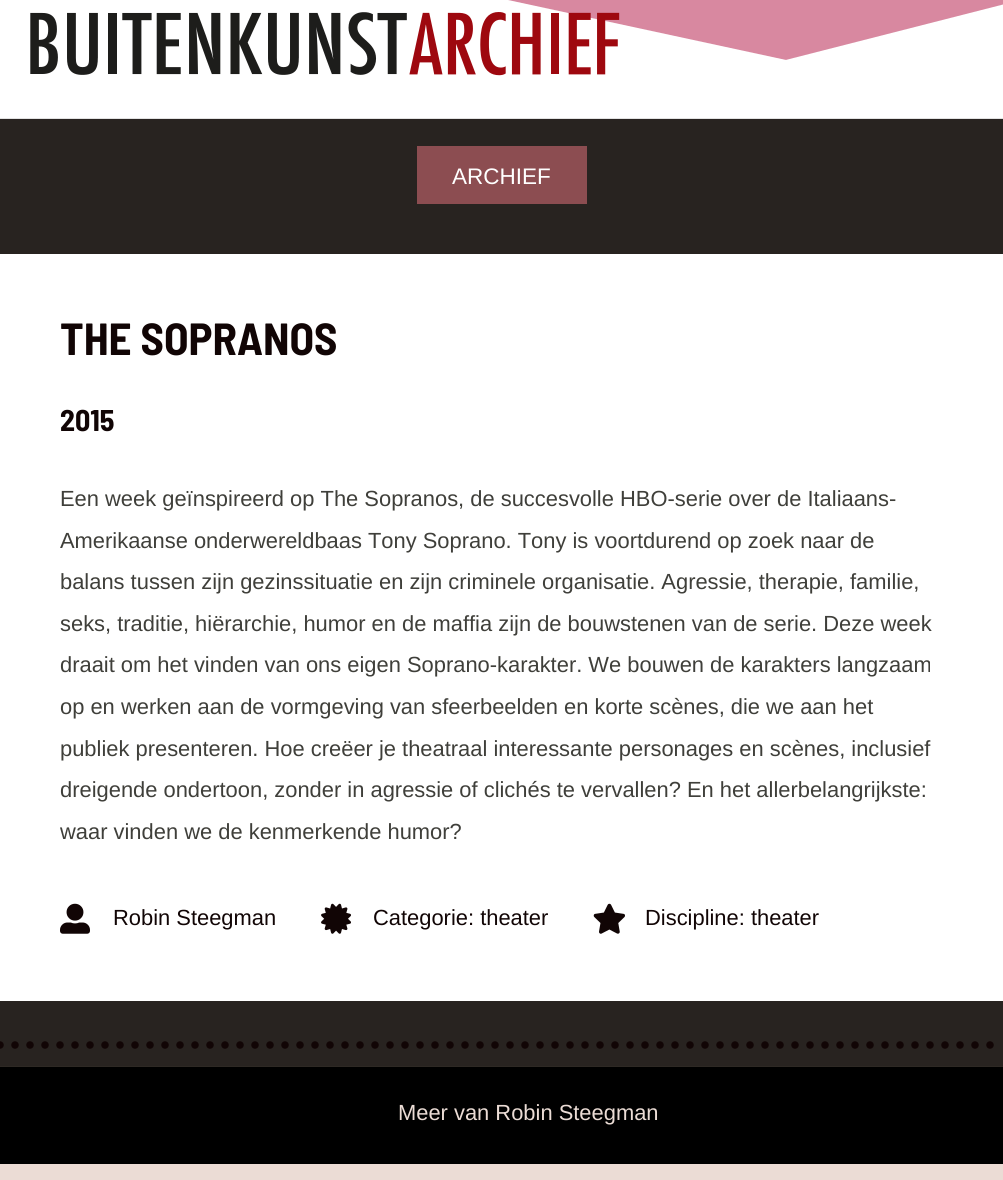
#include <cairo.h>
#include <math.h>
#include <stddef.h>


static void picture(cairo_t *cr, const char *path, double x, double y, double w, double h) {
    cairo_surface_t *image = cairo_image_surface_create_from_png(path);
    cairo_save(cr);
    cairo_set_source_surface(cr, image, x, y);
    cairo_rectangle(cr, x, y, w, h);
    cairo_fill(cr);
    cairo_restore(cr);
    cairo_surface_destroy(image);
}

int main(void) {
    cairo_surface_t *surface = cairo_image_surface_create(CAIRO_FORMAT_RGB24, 1003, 1180);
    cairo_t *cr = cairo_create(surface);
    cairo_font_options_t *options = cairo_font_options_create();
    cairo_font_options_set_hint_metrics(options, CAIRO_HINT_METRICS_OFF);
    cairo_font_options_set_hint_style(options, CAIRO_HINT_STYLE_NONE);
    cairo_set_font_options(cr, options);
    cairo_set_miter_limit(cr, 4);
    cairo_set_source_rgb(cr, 1, 1, 1);
    cairo_paint(cr);
    cairo_set_source_rgb(cr, 0.847, 0.533, 0.627);
    cairo_new_path(cr);
    cairo_move_to(cr, 766, 65);
    cairo_line_to(cr, 646, 39);
    cairo_line_to(cr, 335, 146);
    cairo_line_to(cr, 0, 4);
    cairo_line_to(cr, 0, -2);
    cairo_line_to(cr, 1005, -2);
    cairo_line_to(cr, 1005, 4);
    cairo_fill(cr);
    cairo_set_source_rgb(cr, 1, 1, 1);
    cairo_new_path(cr);
    cairo_move_to(cr, 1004, 107);
    cairo_line_to(cr, 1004, 121);
    cairo_line_to(cr, -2, 121);
    cairo_line_to(cr, -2, -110);
    cairo_close_path(cr);
    cairo_fill(cr);
    picture(cr, "img1.png", 30, 12, 590, 64);
    cairo_set_source_rgb(cr, 0.204, 0.18, 0.161);
    cairo_rectangle(cr, 0, 119, 1003, 948);
    cairo_fill(cr);
    picture(cr, "img2.png", 0, 118, 1003, 949);
    cairo_set_source_rgb(cr, 0.549, 0.302, 0.318);
    cairo_rectangle(cr, 417, 146, 170, 58);
    cairo_fill(cr);
    cairo_select_font_face(cr, "Liberation Sans", CAIRO_FONT_SLANT_NORMAL, CAIRO_FONT_WEIGHT_NORMAL);
    cairo_set_font_size(cr, 22.5);
    cairo_set_source_rgb(cr, 1, 1, 1);
    cairo_move_to(cr, 452, 184);
    cairo_show_text(cr, "ARCHIEF");
    cairo_rectangle(cr, 0, 254, 1003, 747);
    cairo_fill(cr);
    cairo_select_font_face(cr, "Barlow Semi Condensed", CAIRO_FONT_SLANT_NORMAL, CAIRO_FONT_WEIGHT_BOLD);
    cairo_set_font_size(cr, 45);
    cairo_set_source_rgb(cr, 0.067, 0.02, 0.02);
    cairo_move_to(cr, 60, 355);
    cairo_show_text(cr, "THE SOPRANOS");
    cairo_set_font_size(cr, 30);
    cairo_move_to(cr, 60, 431);
    cairo_show_text(cr, "2015");
    cairo_select_font_face(cr, "Liberation Sans", CAIRO_FONT_SLANT_NORMAL, CAIRO_FONT_WEIGHT_NORMAL);
    cairo_set_font_size(cr, 21.9);
    cairo_set_source_rgb(cr, 0.247, 0.247, 0.227);
    cairo_move_to(cr, 60, 506);
    cairo_show_text(cr, "Een week geïnspireerd op The Sopranos, de succesvolle HBO-serie over de Italiaans-");
    cairo_move_to(cr, 60, 548);
    cairo_show_text(cr, "Amerikaanse onderwereldbaas Tony Soprano. Tony is voortdurend op zoek naar de");
    cairo_move_to(cr, 60, 589);
    cairo_show_text(cr, "balans tussen zijn gezinssituatie en zijn criminele organisatie. Agressie, therapie, familie,");
    cairo_move_to(cr, 60, 631);
    cairo_show_text(cr, "seks, traditie, hiërarchie, humor en de maffia zijn de bouwstenen van de serie. Deze week");
    cairo_move_to(cr, 60, 672);
    cairo_show_text(cr, "draait om het vinden van ons eigen Soprano-karakter. We bouwen de karakters langzaam");
    cairo_move_to(cr, 60, 714);
    cairo_show_text(cr, "op en werken aan de vormgeving van sfeerbeelden en korte scènes, die we aan het");
    cairo_move_to(cr, 60, 756);
    cairo_show_text(cr, "publiek presenteren. Hoe creëer je theatraal interessante personages en scènes, inclusief");
    cairo_move_to(cr, 60, 797);
    cairo_show_text(cr, "dreigende ondertoon, zonder in agressie of clichés te vervallen? En het allerbelangrijkste:");
    cairo_move_to(cr, 60, 839);
    cairo_show_text(cr, "waar vinden we de kenmerkende humor?");
    picture(cr, "img3.png", 60, 903, 30, 31);
    cairo_set_source_rgb(cr, 0.067, 0.02, 0.02);
    cairo_move_to(cr, 113, 925);
    cairo_show_text(cr, "Robin Steegman");
    picture(cr, "img4.png", 321, 903, 30, 31);
    cairo_move_to(cr, 373, 925);
    cairo_show_text(cr, "Categorie: theater");
    picture(cr, "img5.png", 593, 903, 32, 31);
    cairo_move_to(cr, 645, 925);
    cairo_show_text(cr, "Discipline: theater");
    cairo_new_path(cr);
    cairo_move_to(cr, 0, 1045);
    cairo_line_to(cr, 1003.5, 1045);
    cairo_set_line_width(cr, 7.5);
    cairo_set_line_cap(cr, CAIRO_LINE_CAP_ROUND);
    cairo_set_dash(cr, (double[]){0, 15}, 2, 0);
    cairo_stroke(cr);
    cairo_set_source_rgb(cr, 0, 0, 0);
    cairo_rectangle(cr, 0, 1067, 1003, 97);
    cairo_fill(cr);
    cairo_set_source_rgb(cr, 0.918, 0.863, 0.835);
    cairo_move_to(cr, 398, 1120);
    cairo_show_text(cr, "Meer van Robin Steegman");
    cairo_rectangle(cr, 0, 1164, 1003, 16);
    cairo_fill(cr);
    cairo_surface_write_to_png(surface, "page.png");
    cairo_font_options_destroy(options);
    cairo_destroy(cr);
    cairo_surface_destroy(surface);
    return 0;
}
